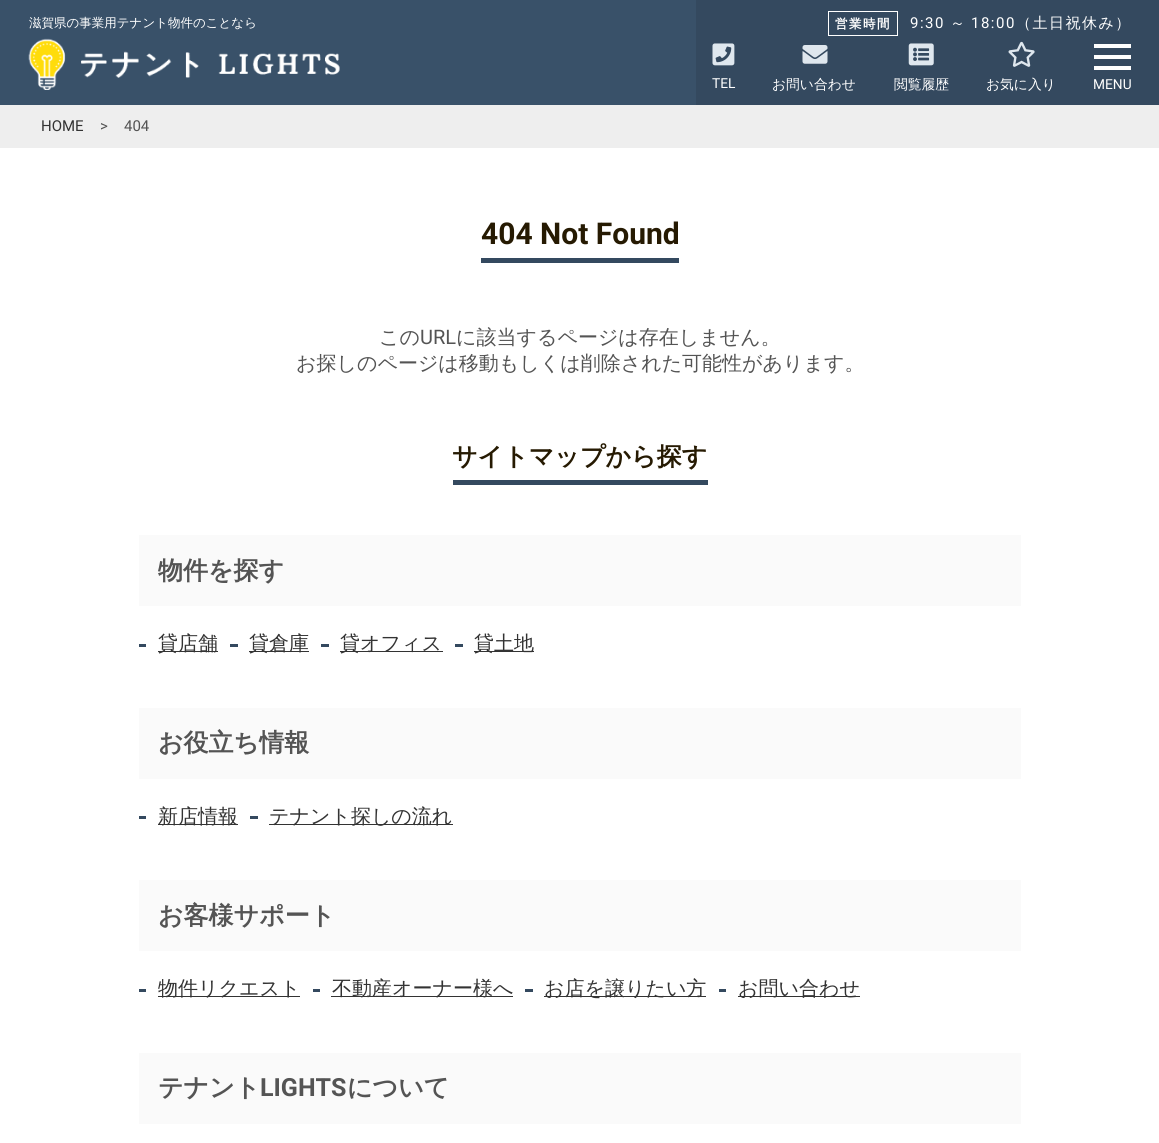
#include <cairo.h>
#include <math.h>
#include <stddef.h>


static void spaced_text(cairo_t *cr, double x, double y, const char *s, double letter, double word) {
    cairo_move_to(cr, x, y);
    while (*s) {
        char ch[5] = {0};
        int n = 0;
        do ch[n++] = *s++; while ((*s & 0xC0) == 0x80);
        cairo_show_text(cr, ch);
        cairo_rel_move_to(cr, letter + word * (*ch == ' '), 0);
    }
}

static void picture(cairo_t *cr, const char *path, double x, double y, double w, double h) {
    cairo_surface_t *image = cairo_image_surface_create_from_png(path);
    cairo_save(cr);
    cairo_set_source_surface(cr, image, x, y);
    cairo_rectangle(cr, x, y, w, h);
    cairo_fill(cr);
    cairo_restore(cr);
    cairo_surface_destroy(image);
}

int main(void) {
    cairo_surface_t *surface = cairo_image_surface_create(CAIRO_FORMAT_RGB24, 1159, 1143);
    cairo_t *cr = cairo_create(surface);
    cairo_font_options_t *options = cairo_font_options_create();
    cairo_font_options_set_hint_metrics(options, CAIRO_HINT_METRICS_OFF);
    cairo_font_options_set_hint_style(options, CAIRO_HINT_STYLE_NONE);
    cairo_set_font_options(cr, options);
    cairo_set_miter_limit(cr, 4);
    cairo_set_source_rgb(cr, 1, 1, 1);
    cairo_paint(cr);
    cairo_set_source_rgb(cr, 0.224, 0.318, 0.412);
    cairo_rectangle(cr, 0, 0, 696, 105);
    cairo_fill(cr);
    cairo_set_source_rgb(cr, 0.204, 0.286, 0.373);
    cairo_rectangle(cr, 696, 0, 463, 105);
    cairo_fill(cr);
    cairo_select_font_face(cr, "WenQuanYi Zen Hei Medium", CAIRO_FONT_SLANT_NORMAL, CAIRO_FONT_WEIGHT_NORMAL);
    cairo_set_font_size(cr, 12.5);
    cairo_set_source_rgb(cr, 1, 1, 1);
    cairo_move_to(cr, 29, 27);
    cairo_show_text(cr, "滋賀県の事業用テナント物件のことなら");
    picture(cr, "img1.png", 28, 38, 312, 52);
    cairo_rectangle(cr, 828.5, 11.5, 69, 24);
    cairo_set_line_width(cr, 1);
    cairo_stroke(cr);
    cairo_select_font_face(cr, "WenQuanYi Zen Hei", CAIRO_FONT_SLANT_NORMAL, CAIRO_FONT_WEIGHT_BOLD);
    spaced_text(cr, 835, 28, "営業時間", 1.5, 0);
    cairo_select_font_face(cr, "Roboto", CAIRO_FONT_SLANT_NORMAL, CAIRO_FONT_WEIGHT_NORMAL);
    cairo_set_font_size(cr, 15);
    spaced_text(cr, 910, 28, "9:30", 1.5, 0);
    cairo_select_font_face(cr, "WenQuanYi Zen Hei Medium", CAIRO_FONT_SLANT_NORMAL, CAIRO_FONT_WEIGHT_NORMAL);
    spaced_text(cr, 950, 28, "～", 1.5, 0);
    cairo_select_font_face(cr, "Roboto", CAIRO_FONT_SLANT_NORMAL, CAIRO_FONT_WEIGHT_NORMAL);
    spaced_text(cr, 971, 28, "18:00", 1.5, 0);
    cairo_select_font_face(cr, "WenQuanYi Zen Hei Medium", CAIRO_FONT_SLANT_NORMAL, CAIRO_FONT_WEIGHT_NORMAL);
    spaced_text(cr, 1016, 28, "（土日祝休み）", 1.5, 0);
    picture(cr, "img2.png", 712, 43, 23, 23);
    cairo_select_font_face(cr, "Roboto", CAIRO_FONT_SLANT_NORMAL, CAIRO_FONT_WEIGHT_NORMAL);
    cairo_set_font_size(cr, 13.75);
    cairo_move_to(cr, 712, 88);
    cairo_show_text(cr, "TEL");
    picture(cr, "img3.png", 802, 45, 26, 19);
    cairo_select_font_face(cr, "WenQuanYi Zen Hei Medium", CAIRO_FONT_SLANT_NORMAL, CAIRO_FONT_WEIGHT_NORMAL);
    cairo_move_to(cr, 772, 89);
    cairo_show_text(cr, "お問い合わせ");
    picture(cr, "img4.png", 908, 43, 26, 23);
    cairo_move_to(cr, 894, 89);
    cairo_show_text(cr, "閲覧履歴");
    picture(cr, "img5.png", 1008, 41, 27, 26);
    cairo_move_to(cr, 986, 89);
    cairo_show_text(cr, "お気に入り");
    cairo_rectangle(cr, 1094, 44, 37, 4);
    cairo_fill(cr);
    cairo_rectangle(cr, 1094, 55, 37, 4);
    cairo_fill(cr);
    cairo_rectangle(cr, 1094, 66, 37, 4);
    cairo_fill(cr);
    cairo_select_font_face(cr, "Roboto", CAIRO_FONT_SLANT_NORMAL, CAIRO_FONT_WEIGHT_NORMAL);
    cairo_move_to(cr, 1093, 89);
    cairo_show_text(cr, "MENU");
    cairo_set_source_rgb(cr, 0.933, 0.933, 0.933);
    cairo_rectangle(cr, 0, 105, 1159, 43);
    cairo_fill(cr);
    cairo_set_font_size(cr, 15);
    cairo_set_source_rgb(cr, 0.2, 0.2, 0.2);
    cairo_move_to(cr, 41, 131);
    cairo_show_text(cr, "HOME");
    cairo_set_source_rgb(cr, 0.329, 0.329, 0.329);
    cairo_move_to(cr, 100, 131);
    cairo_show_text(cr, ">");
    cairo_move_to(cr, 124, 131);
    cairo_show_text(cr, "404");
    cairo_set_source_rgb(cr, 0.204, 0.286, 0.373);
    cairo_rectangle(cr, 481, 258, 198, 5);
    cairo_fill(cr);
    cairo_select_font_face(cr, "Roboto", CAIRO_FONT_SLANT_NORMAL, CAIRO_FONT_WEIGHT_BOLD);
    cairo_set_font_size(cr, 30);
    cairo_set_source_rgb(cr, 0.149, 0.102, 0.008);
    cairo_move_to(cr, 481, 244);
    cairo_show_text(cr, "404 Not Found");
    cairo_select_font_face(cr, "WenQuanYi Zen Hei Medium", CAIRO_FONT_SLANT_NORMAL, CAIRO_FONT_WEIGHT_NORMAL);
    cairo_set_font_size(cr, 20);
    cairo_set_source_rgb(cr, 0.329, 0.329, 0.329);
    cairo_move_to(cr, 379, 344);
    cairo_show_text(cr, "この");
    cairo_select_font_face(cr, "Roboto", CAIRO_FONT_SLANT_NORMAL, CAIRO_FONT_WEIGHT_NORMAL);
    cairo_move_to(cr, 420, 344);
    cairo_show_text(cr, "URL");
    cairo_select_font_face(cr, "WenQuanYi Zen Hei Medium", CAIRO_FONT_SLANT_NORMAL, CAIRO_FONT_WEIGHT_NORMAL);
    cairo_move_to(cr, 456, 344);
    cairo_show_text(cr, "に該当するページは存在しません。");
    cairo_move_to(cr, 296, 370);
    cairo_show_text(cr, "お探しのページは移動もしくは削除された可能性があります。");
    cairo_set_source_rgb(cr, 0.204, 0.286, 0.373);
    cairo_rectangle(cr, 453, 480, 255, 5);
    cairo_fill(cr);
    cairo_select_font_face(cr, "WenQuanYi Zen Hei", CAIRO_FONT_SLANT_NORMAL, CAIRO_FONT_WEIGHT_BOLD);
    cairo_set_font_size(cr, 25);
    cairo_set_source_rgb(cr, 0.149, 0.102, 0.008);
    cairo_move_to(cr, 452, 465);
    cairo_show_text(cr, "サイトマップから探す");
    cairo_set_source_rgb(cr, 0.98, 0.98, 0.98);
    cairo_rectangle(cr, 139, 535, 882, 71);
    cairo_fill(cr);
    cairo_set_source_rgb(cr, 0.329, 0.329, 0.329);
    cairo_move_to(cr, 158, 579);
    cairo_show_text(cr, "物件を探す");
    cairo_set_source_rgb(cr, 0.204, 0.286, 0.373);
    cairo_rectangle(cr, 139, 644, 7, 3);
    cairo_fill(cr);
    cairo_set_source_rgb(cr, 0.2, 0.2, 0.2);
    cairo_rectangle(cr, 158, 651, 60, 1);
    cairo_fill(cr);
    cairo_select_font_face(cr, "WenQuanYi Zen Hei Medium", CAIRO_FONT_SLANT_NORMAL, CAIRO_FONT_WEIGHT_NORMAL);
    cairo_set_font_size(cr, 20);
    cairo_move_to(cr, 158, 650);
    cairo_show_text(cr, "貸店舗");
    cairo_set_source_rgb(cr, 0.204, 0.286, 0.373);
    cairo_rectangle(cr, 230, 644, 8, 3);
    cairo_fill(cr);
    cairo_set_source_rgb(cr, 0.2, 0.2, 0.2);
    cairo_rectangle(cr, 249, 651, 60, 1);
    cairo_fill(cr);
    cairo_move_to(cr, 249, 650);
    cairo_show_text(cr, "貸倉庫");
    cairo_set_source_rgb(cr, 0.204, 0.286, 0.373);
    cairo_rectangle(cr, 321, 644, 8, 3);
    cairo_fill(cr);
    cairo_set_source_rgb(cr, 0.2, 0.2, 0.2);
    cairo_rectangle(cr, 340, 651, 103, 1);
    cairo_fill(cr);
    cairo_move_to(cr, 340, 650);
    cairo_show_text(cr, "貸オフィス");
    cairo_set_source_rgb(cr, 0.204, 0.286, 0.373);
    cairo_rectangle(cr, 455, 644, 8, 3);
    cairo_fill(cr);
    cairo_set_source_rgb(cr, 0.2, 0.2, 0.2);
    cairo_rectangle(cr, 474, 651, 60, 1);
    cairo_fill(cr);
    cairo_move_to(cr, 474, 650);
    cairo_show_text(cr, "貸土地");
    cairo_set_source_rgb(cr, 0.98, 0.98, 0.98);
    cairo_rectangle(cr, 139, 708, 882, 71);
    cairo_fill(cr);
    cairo_select_font_face(cr, "WenQuanYi Zen Hei", CAIRO_FONT_SLANT_NORMAL, CAIRO_FONT_WEIGHT_BOLD);
    cairo_set_font_size(cr, 25);
    cairo_set_source_rgb(cr, 0.329, 0.329, 0.329);
    cairo_move_to(cr, 158, 751);
    cairo_show_text(cr, "お役立ち情報");
    cairo_set_source_rgb(cr, 0.204, 0.286, 0.373);
    cairo_rectangle(cr, 139, 816, 7, 3);
    cairo_fill(cr);
    cairo_set_source_rgb(cr, 0.2, 0.2, 0.2);
    cairo_rectangle(cr, 158, 824, 80, 1);
    cairo_fill(cr);
    cairo_select_font_face(cr, "WenQuanYi Zen Hei Medium", CAIRO_FONT_SLANT_NORMAL, CAIRO_FONT_WEIGHT_NORMAL);
    cairo_set_font_size(cr, 20);
    cairo_move_to(cr, 158, 823);
    cairo_show_text(cr, "新店情報");
    cairo_set_source_rgb(cr, 0.204, 0.286, 0.373);
    cairo_rectangle(cr, 250, 816, 8, 3);
    cairo_fill(cr);
    cairo_set_source_rgb(cr, 0.2, 0.2, 0.2);
    cairo_rectangle(cr, 269, 824, 184, 1);
    cairo_fill(cr);
    cairo_move_to(cr, 269, 823);
    cairo_show_text(cr, "テナント探しの流れ");
    cairo_set_source_rgb(cr, 0.98, 0.98, 0.98);
    cairo_rectangle(cr, 139, 880, 882, 71);
    cairo_fill(cr);
    cairo_select_font_face(cr, "WenQuanYi Zen Hei", CAIRO_FONT_SLANT_NORMAL, CAIRO_FONT_WEIGHT_BOLD);
    cairo_set_font_size(cr, 25);
    cairo_set_source_rgb(cr, 0.329, 0.329, 0.329);
    cairo_move_to(cr, 158, 924);
    cairo_show_text(cr, "お客様サポート");
    cairo_set_source_rgb(cr, 0.204, 0.286, 0.373);
    cairo_rectangle(cr, 139, 989, 7, 3);
    cairo_fill(cr);
    cairo_set_source_rgb(cr, 0.2, 0.2, 0.2);
    cairo_rectangle(cr, 158, 996, 142, 1);
    cairo_fill(cr);
    cairo_select_font_face(cr, "WenQuanYi Zen Hei Medium", CAIRO_FONT_SLANT_NORMAL, CAIRO_FONT_WEIGHT_NORMAL);
    cairo_set_font_size(cr, 20);
    cairo_move_to(cr, 158, 995);
    cairo_show_text(cr, "物件リクエスト");
    cairo_set_source_rgb(cr, 0.204, 0.286, 0.373);
    cairo_rectangle(cr, 313, 989, 7, 3);
    cairo_fill(cr);
    cairo_set_source_rgb(cr, 0.2, 0.2, 0.2);
    cairo_rectangle(cr, 331, 996, 182, 1);
    cairo_fill(cr);
    cairo_move_to(cr, 332, 995);
    cairo_show_text(cr, "不動産オーナー様へ");
    cairo_set_source_rgb(cr, 0.204, 0.286, 0.373);
    cairo_rectangle(cr, 525, 989, 8, 3);
    cairo_fill(cr);
    cairo_set_source_rgb(cr, 0.2, 0.2, 0.2);
    cairo_rectangle(cr, 544, 996, 162, 1);
    cairo_fill(cr);
    cairo_move_to(cr, 544, 995);
    cairo_show_text(cr, "お店を譲りたい方");
    cairo_set_source_rgb(cr, 0.204, 0.286, 0.373);
    cairo_rectangle(cr, 719, 989, 7, 3);
    cairo_fill(cr);
    cairo_set_source_rgb(cr, 0.2, 0.2, 0.2);
    cairo_rectangle(cr, 738, 996, 122, 1);
    cairo_fill(cr);
    cairo_move_to(cr, 738, 995);
    cairo_show_text(cr, "お問い合わせ");
    cairo_set_source_rgb(cr, 0.98, 0.98, 0.98);
    cairo_rectangle(cr, 139, 1053, 882, 71);
    cairo_fill(cr);
    cairo_select_font_face(cr, "WenQuanYi Zen Hei", CAIRO_FONT_SLANT_NORMAL, CAIRO_FONT_WEIGHT_BOLD);
    cairo_set_font_size(cr, 25);
    cairo_set_source_rgb(cr, 0.329, 0.329, 0.329);
    cairo_move_to(cr, 158, 1096);
    cairo_show_text(cr, "テナント");
    cairo_select_font_face(cr, "Roboto", CAIRO_FONT_SLANT_NORMAL, CAIRO_FONT_WEIGHT_BOLD);
    cairo_move_to(cr, 260, 1096);
    cairo_show_text(cr, "LIGHTS");
    cairo_select_font_face(cr, "WenQuanYi Zen Hei", CAIRO_FONT_SLANT_NORMAL, CAIRO_FONT_WEIGHT_BOLD);
    cairo_move_to(cr, 347, 1096);
    cairo_show_text(cr, "について");
    cairo_surface_write_to_png(surface, "page.png");
    cairo_font_options_destroy(options);
    cairo_destroy(cr);
    cairo_surface_destroy(surface);
    return 0;
}
